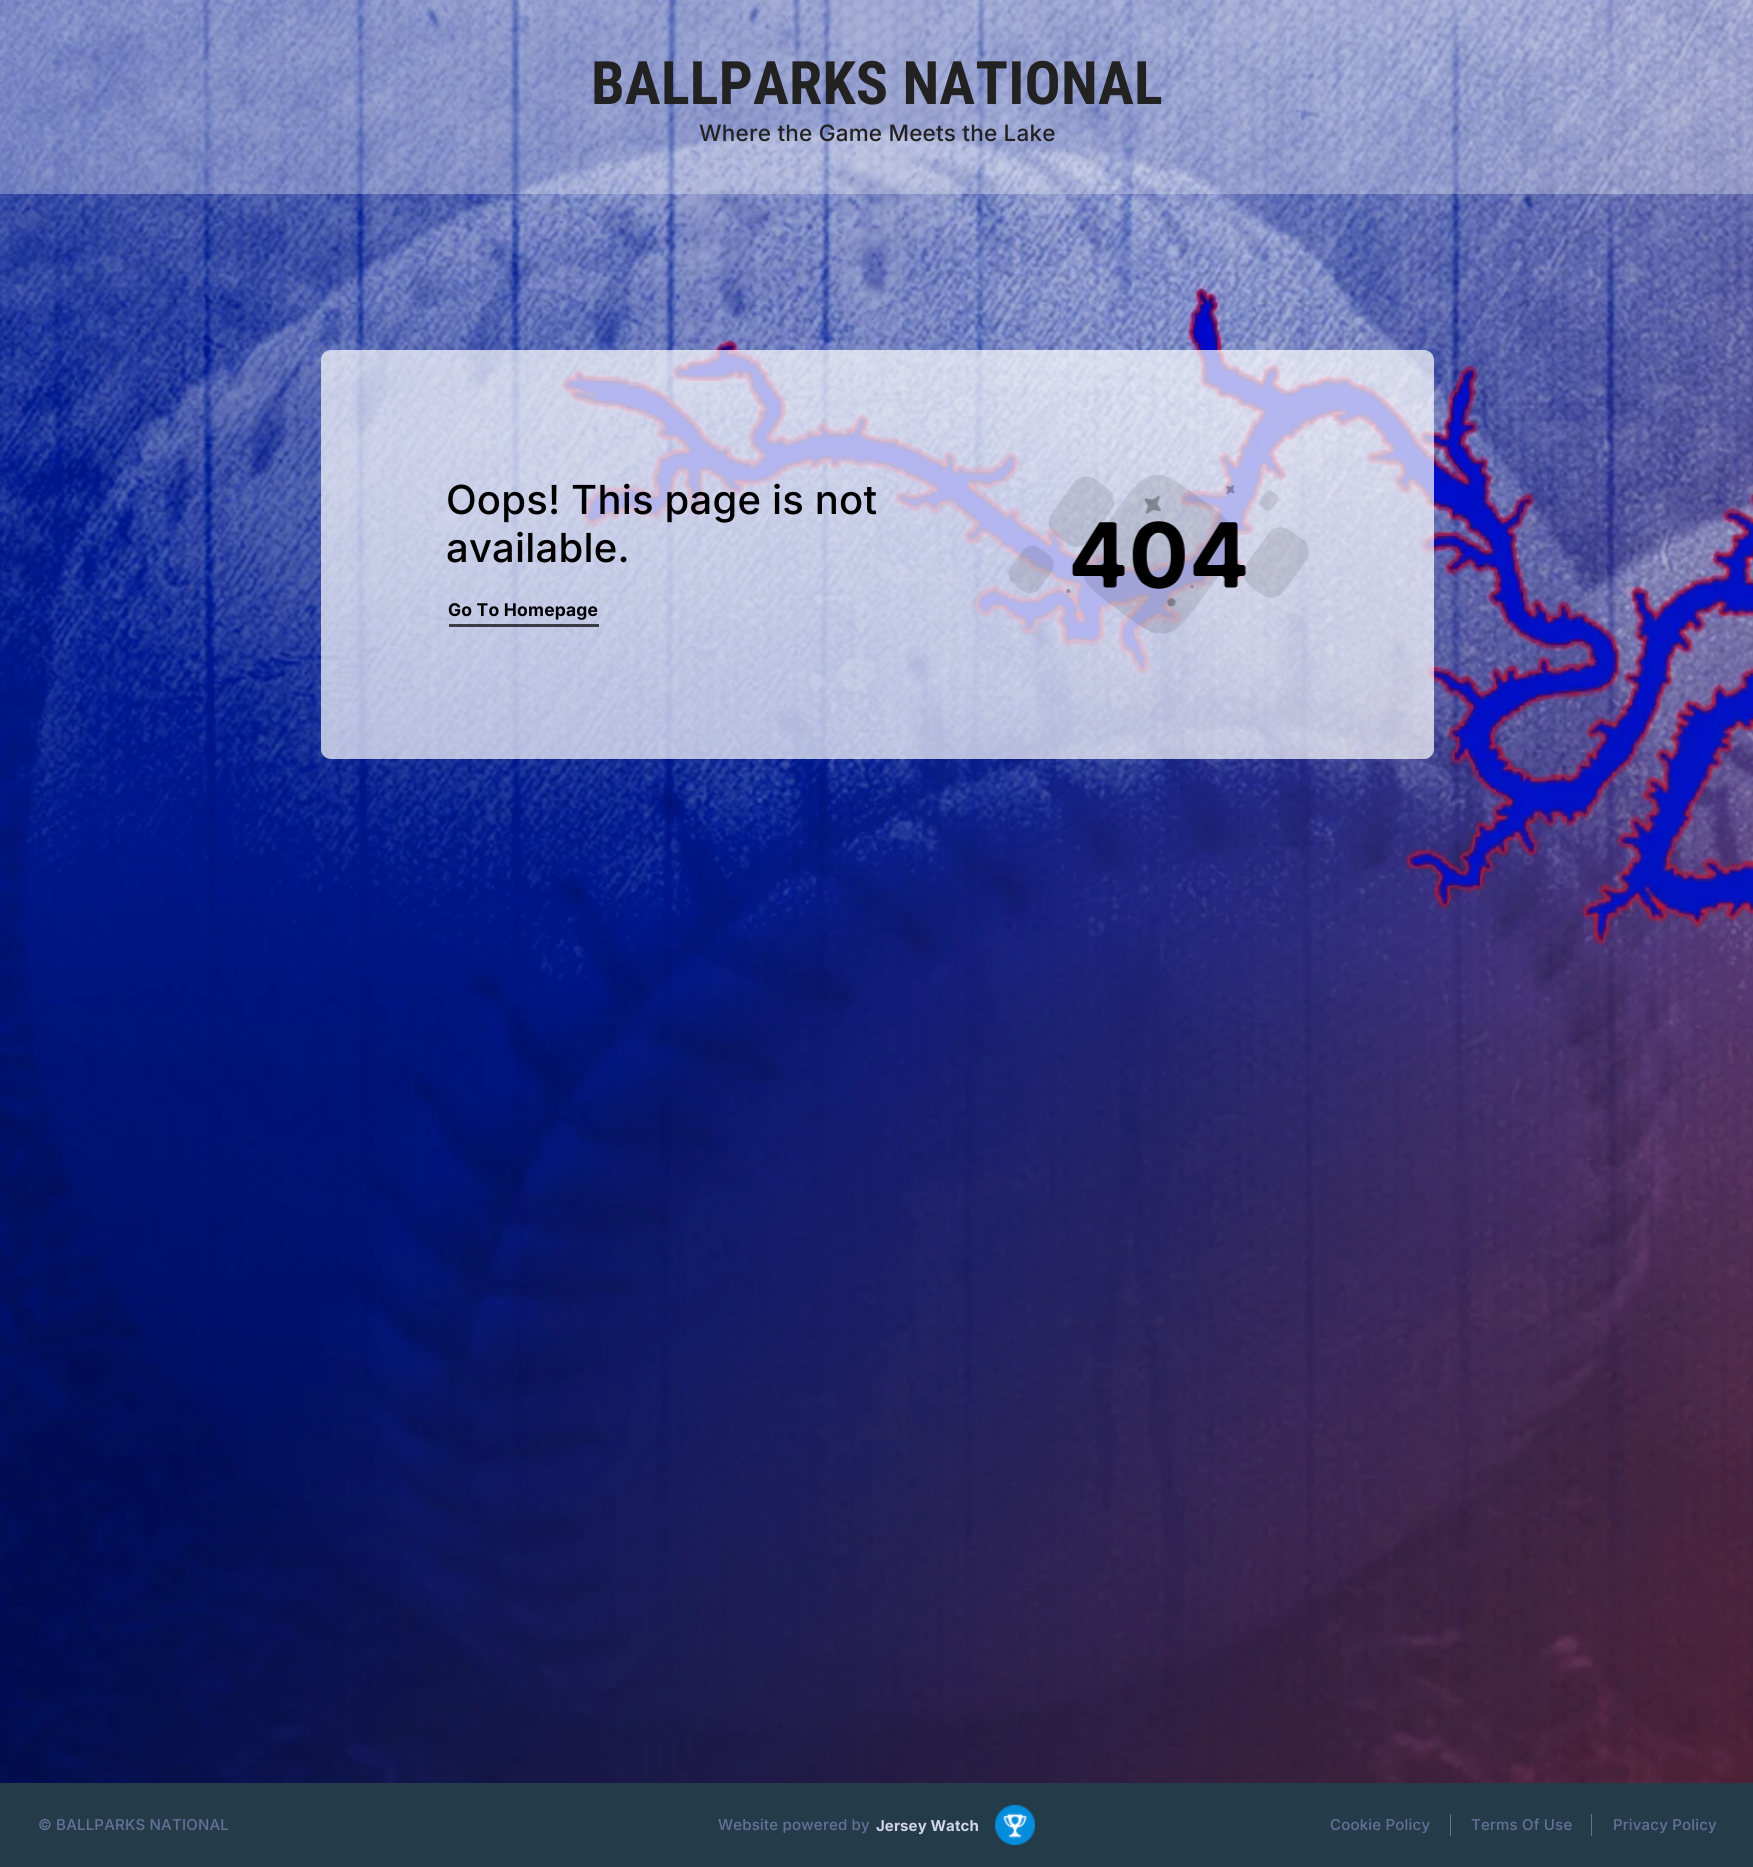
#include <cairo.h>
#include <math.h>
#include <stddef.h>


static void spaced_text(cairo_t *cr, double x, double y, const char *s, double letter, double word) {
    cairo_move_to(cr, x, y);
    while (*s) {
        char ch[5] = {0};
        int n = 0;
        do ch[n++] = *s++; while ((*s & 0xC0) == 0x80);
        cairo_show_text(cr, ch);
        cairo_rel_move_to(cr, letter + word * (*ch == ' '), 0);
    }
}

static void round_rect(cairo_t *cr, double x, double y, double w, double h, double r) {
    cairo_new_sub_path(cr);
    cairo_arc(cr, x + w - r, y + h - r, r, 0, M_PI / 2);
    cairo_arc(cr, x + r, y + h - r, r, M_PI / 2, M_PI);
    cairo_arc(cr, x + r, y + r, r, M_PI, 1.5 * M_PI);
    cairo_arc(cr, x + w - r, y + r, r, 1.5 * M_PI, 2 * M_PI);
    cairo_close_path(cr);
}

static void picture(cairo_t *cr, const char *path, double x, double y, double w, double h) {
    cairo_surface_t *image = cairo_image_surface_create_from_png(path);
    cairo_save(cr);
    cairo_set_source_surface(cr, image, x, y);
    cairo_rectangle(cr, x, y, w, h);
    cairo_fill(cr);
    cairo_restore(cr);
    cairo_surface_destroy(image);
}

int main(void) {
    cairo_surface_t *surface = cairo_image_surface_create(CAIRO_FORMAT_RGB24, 1753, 1867);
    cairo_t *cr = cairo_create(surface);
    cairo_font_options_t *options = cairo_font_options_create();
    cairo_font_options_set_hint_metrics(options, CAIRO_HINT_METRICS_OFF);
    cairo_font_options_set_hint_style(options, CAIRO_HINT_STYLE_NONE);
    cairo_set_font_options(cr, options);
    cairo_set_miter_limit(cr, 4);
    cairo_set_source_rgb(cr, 0.141, 0.231, 0.29);
    cairo_paint(cr);
    picture(cr, "img1.png", 0, 0, 1753, 1783);
    cairo_set_source_rgba(cr, 1, 1, 1, 0.3);
    cairo_rectangle(cr, 0, 0, 1753, 194);
    cairo_fill(cr);
    cairo_select_font_face(cr, "Roboto Condensed", CAIRO_FONT_SLANT_NORMAL, CAIRO_FONT_WEIGHT_BOLD);
    cairo_set_font_size(cr, 60);
    cairo_set_source_rgb(cr, 0.133, 0.133, 0.133);
    spaced_text(cr, 591, 104, "BALLPARKS NATIONAL", 0.2, 0);
    cairo_select_font_face(cr, "Inter Medium", CAIRO_FONT_SLANT_NORMAL, CAIRO_FONT_WEIGHT_NORMAL);
    cairo_set_font_size(cr, 22.5);
    spaced_text(cr, 699, 141, "Where the Game Meets the Lake", 0.2, 0);
    cairo_set_source_rgba(cr, 1, 1, 1, 0.7);
    round_rect(cr, 321, 350, 1113, 409, 10);
    cairo_fill(cr);
    cairo_set_font_size(cr, 40);
    cairo_set_source_rgb(cr, 0, 0, 0);
    spaced_text(cr, 446, 514, "Oops! This page is not", 0.2, 0);
    spaced_text(cr, 446, 562, "available.", 0.2, 0);
    cairo_select_font_face(cr, "Inter", CAIRO_FONT_SLANT_NORMAL, CAIRO_FONT_WEIGHT_BOLD);
    cairo_set_font_size(cr, 17.5);
    spaced_text(cr, 448, 616, "Go To Homepage", 0.2, 0);
    cairo_set_source_rgba(cr, 0, 0, 0, 0.7);
    cairo_rectangle(cr, 449, 624, 150, 3);
    cairo_fill(cr);
    picture(cr, "img2.png", 1008, 475, 301, 159);
    cairo_select_font_face(cr, "Inter Medium", CAIRO_FONT_SLANT_NORMAL, CAIRO_FONT_WEIGHT_NORMAL);
    cairo_set_font_size(cr, 15);
    cairo_set_source_rgb(cr, 0.396, 0.443, 0.592);
    spaced_text(cr, 38, 1830, "© BALLPARKS NATIONAL", 0.2, 0);
    spaced_text(cr, 718, 1830, "Website powered by", 0.2, 0);
    cairo_select_font_face(cr, "Inter", CAIRO_FONT_SLANT_NORMAL, CAIRO_FONT_WEIGHT_BOLD);
    cairo_set_source_rgb(cr, 0.827, 0.839, 0.914);
    spaced_text(cr, 876, 1831, "Jersey Watch", 0.1, 0);
    picture(cr, "img3.png", 995, 1805, 40, 40);
    cairo_select_font_face(cr, "Inter Medium", CAIRO_FONT_SLANT_NORMAL, CAIRO_FONT_WEIGHT_NORMAL);
    cairo_set_source_rgb(cr, 0.396, 0.443, 0.592);
    spaced_text(cr, 1330, 1830, "Cookie Policy", 0.2, 0);
    cairo_rectangle(cr, 1450, 1814, 1, 22);
    cairo_fill(cr);
    spaced_text(cr, 1471, 1830, "Terms Of Use", 0.2, 0);
    cairo_rectangle(cr, 1591, 1814, 1, 22);
    cairo_fill(cr);
    spaced_text(cr, 1613, 1830, "Privacy Policy", 0.2, 0);
    cairo_surface_write_to_png(surface, "page.png");
    cairo_font_options_destroy(options);
    cairo_destroy(cr);
    cairo_surface_destroy(surface);
    return 0;
}
